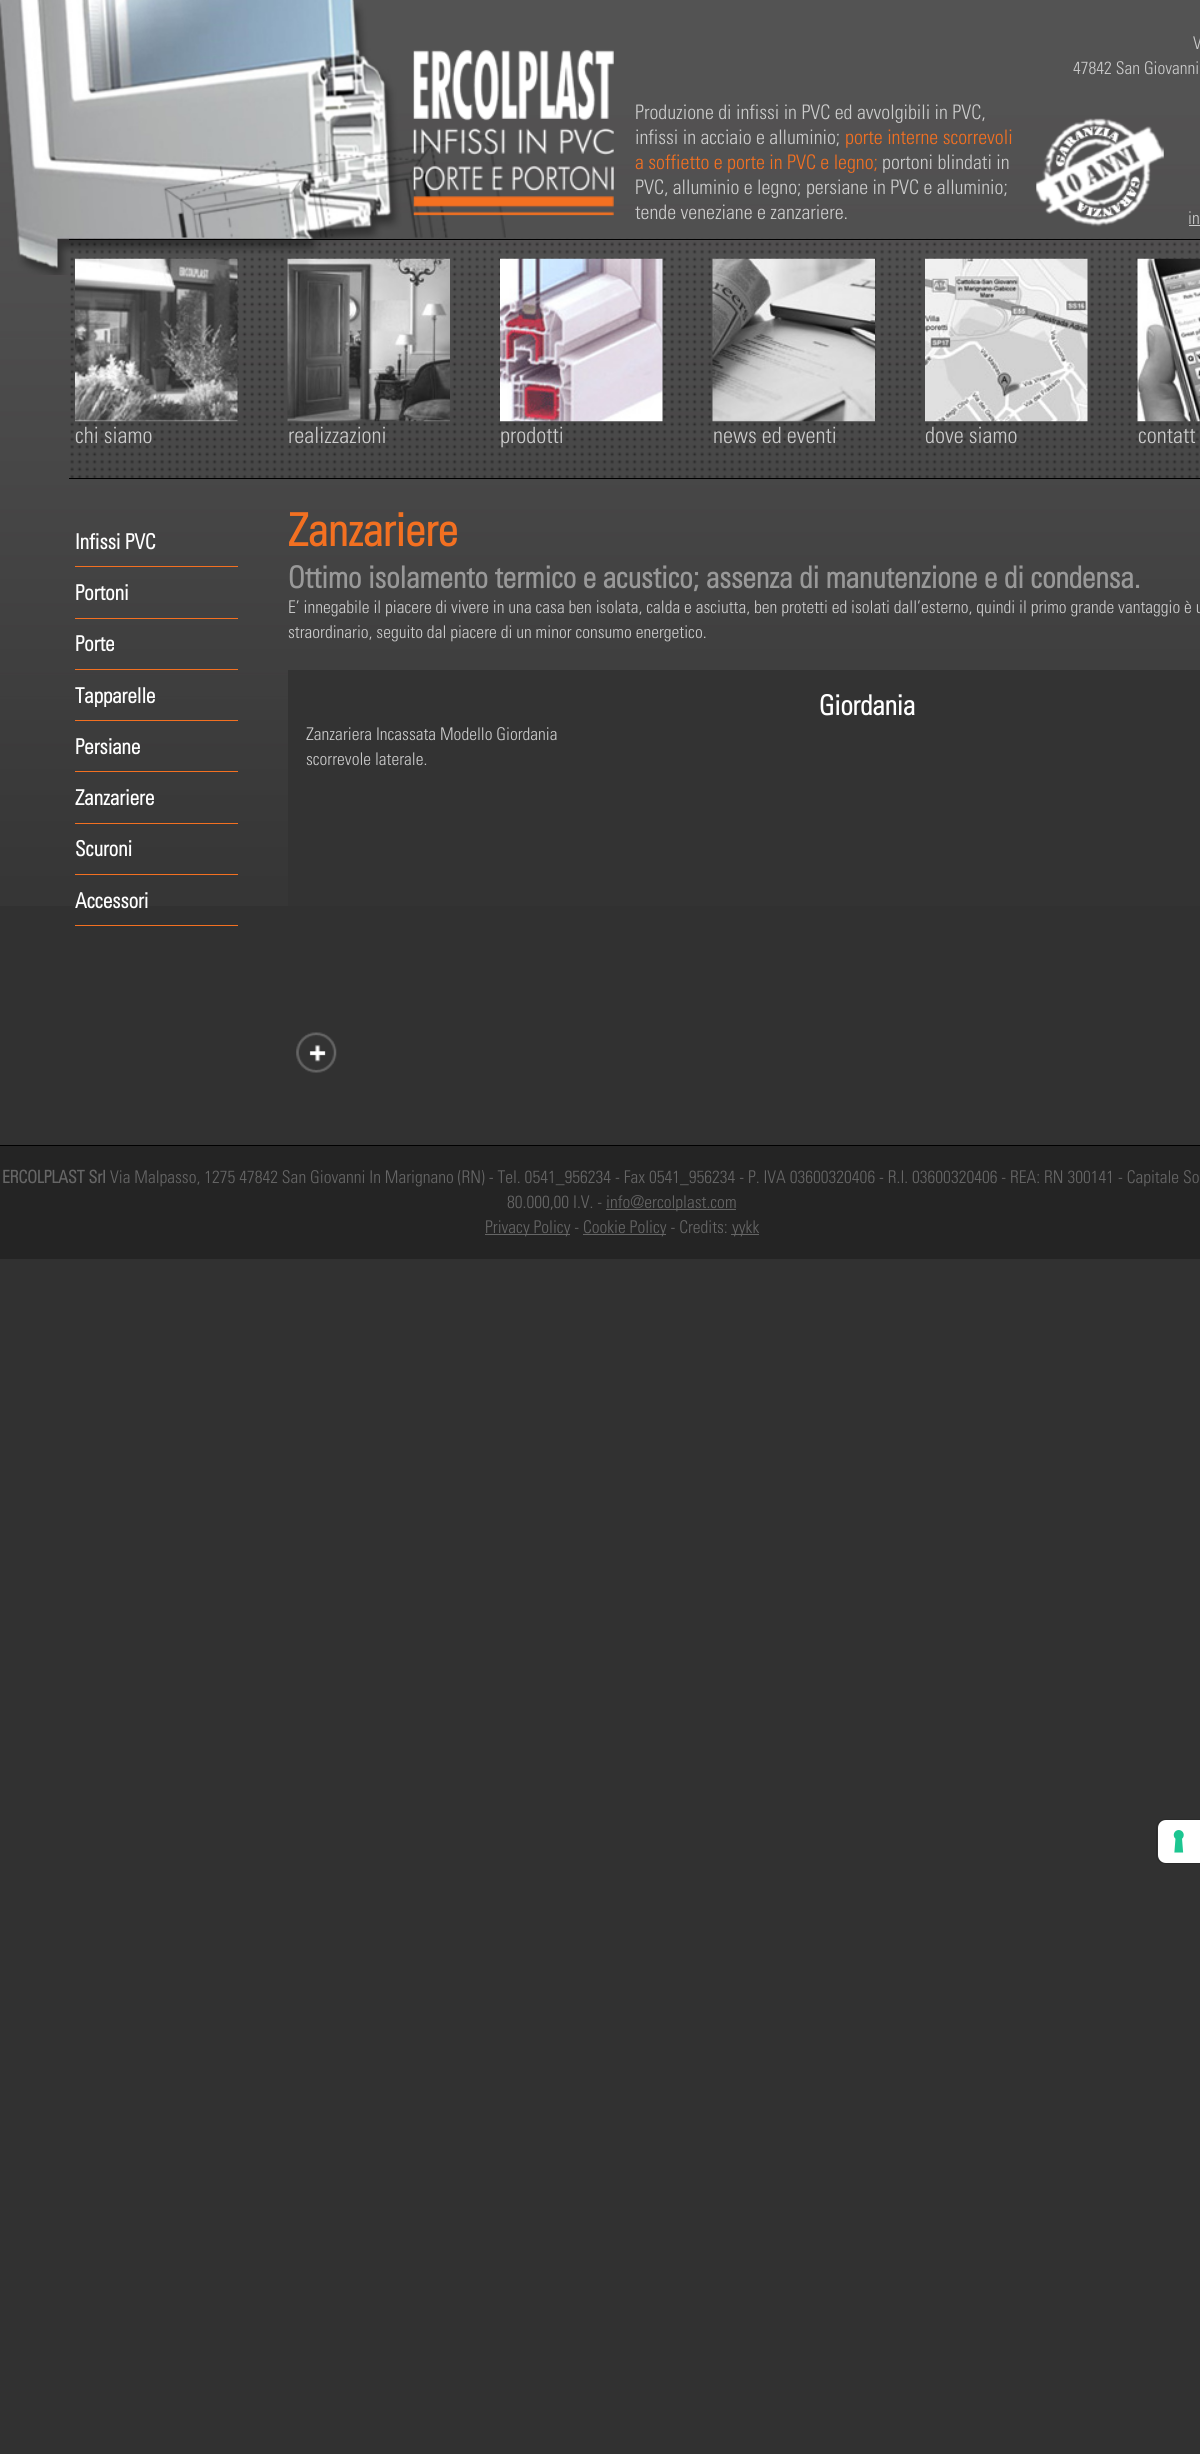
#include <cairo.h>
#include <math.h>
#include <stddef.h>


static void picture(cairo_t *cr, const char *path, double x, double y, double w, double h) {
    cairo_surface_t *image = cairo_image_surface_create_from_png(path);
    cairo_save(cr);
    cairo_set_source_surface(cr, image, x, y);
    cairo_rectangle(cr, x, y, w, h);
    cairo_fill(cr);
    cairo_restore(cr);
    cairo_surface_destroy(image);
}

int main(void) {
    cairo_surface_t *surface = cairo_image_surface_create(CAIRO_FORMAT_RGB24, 1200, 2454);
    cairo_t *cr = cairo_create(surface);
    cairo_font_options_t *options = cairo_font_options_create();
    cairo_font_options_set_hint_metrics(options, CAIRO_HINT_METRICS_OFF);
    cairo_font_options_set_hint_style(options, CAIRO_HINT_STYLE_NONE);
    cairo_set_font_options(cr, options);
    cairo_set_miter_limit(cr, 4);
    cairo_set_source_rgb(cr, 0.192, 0.192, 0.192);
    cairo_paint(cr);
    picture(cr, "img1.png", 0, 0, 1200, 906);
    picture(cr, "img2.png", 0, 0, 506, 275);
    picture(cr, "img3.png", 413, 49, 201, 167);
    cairo_select_font_face(cr, "Univers Light", CAIRO_FONT_SLANT_NORMAL, CAIRO_FONT_WEIGHT_NORMAL);
    cairo_set_font_size(cr, 20);
    cairo_set_source_rgb(cr, 0.8, 0.8, 0.8);
    cairo_move_to(cr, 635, 119);
    cairo_show_text(cr, "Produzione di infissi in PVC ed avvolgibili in PVC,");
    cairo_move_to(cr, 635, 144);
    cairo_show_text(cr, "infissi in acciaio e alluminio;");
    cairo_set_source_rgb(cr, 0.953, 0.439, 0.129);
    cairo_move_to(cr, 845, 144);
    cairo_show_text(cr, "porte interne scorrevoli");
    cairo_move_to(cr, 635, 169);
    cairo_show_text(cr, "a soffietto e porte in PVC e legno;");
    cairo_set_source_rgb(cr, 0.8, 0.8, 0.8);
    cairo_move_to(cr, 882, 169);
    cairo_show_text(cr, "portoni blindati in");
    cairo_move_to(cr, 635, 194);
    cairo_show_text(cr, "PVC, alluminio e legno; persiane in PVC e alluminio;");
    cairo_move_to(cr, 635, 219);
    cairo_show_text(cr, "tende veneziane e zanzariere.");
    picture(cr, "img4.png", 1036, 118, 128, 109);
    cairo_set_font_size(cr, 17.5);
    cairo_move_to(cr, 1193, 49);
    cairo_show_text(cr, "V");
    cairo_move_to(cr, 1073, 74);
    cairo_show_text(cr, "47842 San Giovanni");
    cairo_move_to(cr, 1188, 224);
    cairo_show_text(cr, "in");
    cairo_rectangle(cr, 1189, 225, 11, 1);
    cairo_fill(cr);
    picture(cr, "img5.png", 70, 238, 1129, 240);
    cairo_set_source_rgb(cr, 0, 0, 0);
    cairo_rectangle(cr, 69, 239, 1131, 1);
    cairo_fill(cr);
    cairo_rectangle(cr, 69, 478, 1131, 1);
    cairo_fill(cr);
    picture(cr, "img6.png", 75, 258, 163, 164);
    cairo_set_font_size(cr, 22.5);
    cairo_set_source_rgb(cr, 0.8, 0.8, 0.8);
    cairo_move_to(cr, 75, 443);
    cairo_show_text(cr, "chi siamo");
    picture(cr, "img7.png", 287, 258, 163, 164);
    cairo_move_to(cr, 288, 443);
    cairo_show_text(cr, "realizzazioni");
    picture(cr, "img8.png", 500, 258, 163, 164);
    cairo_move_to(cr, 500, 443);
    cairo_show_text(cr, "prodotti");
    picture(cr, "img9.png", 712, 258, 163, 164);
    cairo_move_to(cr, 713, 443);
    cairo_show_text(cr, "news ed eventi");
    picture(cr, "img10.png", 925, 258, 163, 164);
    cairo_move_to(cr, 925, 443);
    cairo_show_text(cr, "dove siamo");
    picture(cr, "img11.png", 1137, 258, 63, 164);
    cairo_move_to(cr, 1138, 443);
    cairo_show_text(cr, "contatt");
    cairo_set_source_rgb(cr, 0.953, 0.439, 0.129);
    cairo_rectangle(cr, 75, 566, 163, 1);
    cairo_fill(cr);
    cairo_select_font_face(cr, "Univers", CAIRO_FONT_SLANT_NORMAL, CAIRO_FONT_WEIGHT_BOLD);
    cairo_set_font_size(cr, 21);
    cairo_set_source_rgb(cr, 1, 1, 1);
    cairo_move_to(cr, 75, 549);
    cairo_show_text(cr, "Infissi PVC");
    cairo_set_source_rgb(cr, 0.953, 0.439, 0.129);
    cairo_rectangle(cr, 75, 618, 163, 1);
    cairo_fill(cr);
    cairo_set_source_rgb(cr, 1, 1, 1);
    cairo_move_to(cr, 75, 600);
    cairo_show_text(cr, "Portoni");
    cairo_set_source_rgb(cr, 0.953, 0.439, 0.129);
    cairo_rectangle(cr, 75, 669, 163, 1);
    cairo_fill(cr);
    cairo_set_source_rgb(cr, 1, 1, 1);
    cairo_move_to(cr, 75, 651);
    cairo_show_text(cr, "Porte");
    cairo_set_source_rgb(cr, 0.953, 0.439, 0.129);
    cairo_rectangle(cr, 75, 720, 163, 1);
    cairo_fill(cr);
    cairo_set_source_rgb(cr, 1, 1, 1);
    cairo_move_to(cr, 75, 703);
    cairo_show_text(cr, "Tapparelle");
    cairo_set_source_rgb(cr, 0.953, 0.439, 0.129);
    cairo_rectangle(cr, 75, 771, 163, 1);
    cairo_fill(cr);
    cairo_set_source_rgb(cr, 1, 1, 1);
    cairo_move_to(cr, 75, 754);
    cairo_show_text(cr, "Persiane");
    cairo_set_source_rgb(cr, 0.953, 0.439, 0.129);
    cairo_rectangle(cr, 75, 823, 163, 1);
    cairo_fill(cr);
    cairo_set_source_rgb(cr, 1, 1, 1);
    cairo_move_to(cr, 75, 805);
    cairo_show_text(cr, "Zanzariere");
    cairo_set_source_rgb(cr, 0.953, 0.439, 0.129);
    cairo_rectangle(cr, 75, 874, 163, 1);
    cairo_fill(cr);
    cairo_set_source_rgb(cr, 1, 1, 1);
    cairo_move_to(cr, 75, 856);
    cairo_show_text(cr, "Scuroni");
    cairo_set_source_rgb(cr, 0.953, 0.439, 0.129);
    cairo_rectangle(cr, 75, 925, 163, 1);
    cairo_fill(cr);
    cairo_set_source_rgb(cr, 1, 1, 1);
    cairo_move_to(cr, 75, 908);
    cairo_show_text(cr, "Accessori");
    cairo_set_font_size(cr, 45);
    cairo_set_source_rgb(cr, 0.953, 0.439, 0.129);
    cairo_move_to(cr, 288, 546);
    cairo_show_text(cr, "Zanzariere");
    cairo_set_font_size(cr, 30);
    cairo_set_source_rgb(cr, 0.6, 0.6, 0.6);
    cairo_move_to(cr, 288, 588);
    cairo_show_text(cr, "Ottimo isolamento termico e acustico; assenza di manutenzione e di condensa.");
    cairo_select_font_face(cr, "Univers Light", CAIRO_FONT_SLANT_NORMAL, CAIRO_FONT_WEIGHT_NORMAL);
    cairo_set_font_size(cr, 17.5);
    cairo_set_source_rgb(cr, 0.8, 0.8, 0.8);
    cairo_move_to(cr, 288, 613);
    cairo_show_text(cr, "E’ innegabile il piacere di vivere in una casa ben isolata, calda e asciutta, ben protetti ed isolati dall’esterno, quindi il primo grande vantaggio è u");
    cairo_move_to(cr, 288, 638);
    cairo_show_text(cr, "straordinario, seguito dal piacere di un minor consumo energetico.");
    cairo_set_source_rgb(cr, 0.2, 0.2, 0.2);
    cairo_rectangle(cr, 288, 670, 912, 236);
    cairo_fill(cr);
    cairo_select_font_face(cr, "Univers", CAIRO_FONT_SLANT_NORMAL, CAIRO_FONT_WEIGHT_BOLD);
    cairo_set_font_size(cr, 27.5);
    cairo_set_source_rgb(cr, 1, 1, 1);
    cairo_move_to(cr, 819, 715);
    cairo_show_text(cr, "Giordania");
    cairo_select_font_face(cr, "Univers Light", CAIRO_FONT_SLANT_NORMAL, CAIRO_FONT_WEIGHT_NORMAL);
    cairo_set_font_size(cr, 17.5);
    cairo_set_source_rgb(cr, 0.8, 0.8, 0.8);
    cairo_move_to(cr, 306, 740);
    cairo_show_text(cr, "Zanzariera Incassata Modello Giordania");
    cairo_move_to(cr, 306, 765);
    cairo_show_text(cr, "scorrevole laterale.");
    picture(cr, "img12.png", 296, 1032, 41, 41);
    cairo_set_source_rgb(cr, 0.141, 0.141, 0.141);
    cairo_rectangle(cr, 0, 1146, 1200, 113);
    cairo_fill(cr);
    cairo_set_source_rgb(cr, 0, 0, 0);
    cairo_rectangle(cr, 0, 1145, 1200, 1);
    cairo_fill(cr);
    cairo_select_font_face(cr, "Univers", CAIRO_FONT_SLANT_NORMAL, CAIRO_FONT_WEIGHT_BOLD);
    cairo_set_source_rgb(cr, 0.4, 0.4, 0.4);
    cairo_move_to(cr, 2, 1183);
    cairo_show_text(cr, "ERCOLPLAST Srl");
    cairo_select_font_face(cr, "Univers Light", CAIRO_FONT_SLANT_NORMAL, CAIRO_FONT_WEIGHT_NORMAL);
    cairo_move_to(cr, 110, 1183);
    cairo_show_text(cr, "Via Malpasso, 1275 47842 San Giovanni In Marignano (RN) - Tel. 0541_956234 - Fax 0541_956234 - P. IVA 03600320406 - R.I. 03600320406 - REA: RN 300141 - Capitale So");
    cairo_move_to(cr, 507, 1208);
    cairo_show_text(cr, "80.000,00 I.V. -");
    cairo_rectangle(cr, 606, 1209, 130, 1);
    cairo_fill(cr);
    cairo_move_to(cr, 606, 1208);
    cairo_show_text(cr, "info@ercolplast.com");
    cairo_rectangle(cr, 485, 1234, 85, 1);
    cairo_fill(cr);
    cairo_move_to(cr, 485, 1233);
    cairo_show_text(cr, "Privacy Policy -");
    cairo_rectangle(cr, 583, 1234, 83, 1);
    cairo_fill(cr);
    cairo_move_to(cr, 583, 1233);
    cairo_show_text(cr, "Cookie Policy - Credits:");
    cairo_rectangle(cr, 731, 1234, 28, 1);
    cairo_fill(cr);
    cairo_move_to(cr, 732, 1233);
    cairo_show_text(cr, "yykk");
    cairo_new_path(cr);
    cairo_move_to(cr, 1165, 1819.5);
    cairo_line_to(cr, 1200.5, 1819.5);
    cairo_line_to(cr, 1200.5, 1863.5);
    cairo_line_to(cr, 1165, 1863.5);
    cairo_curve_to(cr, 1160.5, 1863.5, 1156.5, 1859.5, 1156.5, 1855);
    cairo_line_to(cr, 1156.5, 1828);
    cairo_curve_to(cr, 1156.5, 1823.5, 1160.5, 1819.5, 1165, 1819.5);
    cairo_close_path(cr);
    cairo_set_source_rgb(cr, 0.165, 0.165, 0.165);
    cairo_set_line_width(cr, 1);
    cairo_stroke(cr);
    cairo_set_source_rgb(cr, 1, 1, 1);
    cairo_new_path(cr);
    cairo_move_to(cr, 1166, 1820);
    cairo_line_to(cr, 1200, 1820);
    cairo_line_to(cr, 1200, 1863);
    cairo_line_to(cr, 1166, 1863);
    cairo_curve_to(cr, 1161.5, 1863, 1158, 1859.5, 1158, 1855);
    cairo_line_to(cr, 1158, 1828);
    cairo_curve_to(cr, 1158, 1823.5, 1161.5, 1820, 1166, 1820);
    cairo_close_path(cr);
    cairo_fill(cr);
    picture(cr, "img13.png", 1173, 1830, 11, 23);
    cairo_surface_write_to_png(surface, "page.png");
    cairo_font_options_destroy(options);
    cairo_destroy(cr);
    cairo_surface_destroy(surface);
    return 0;
}
